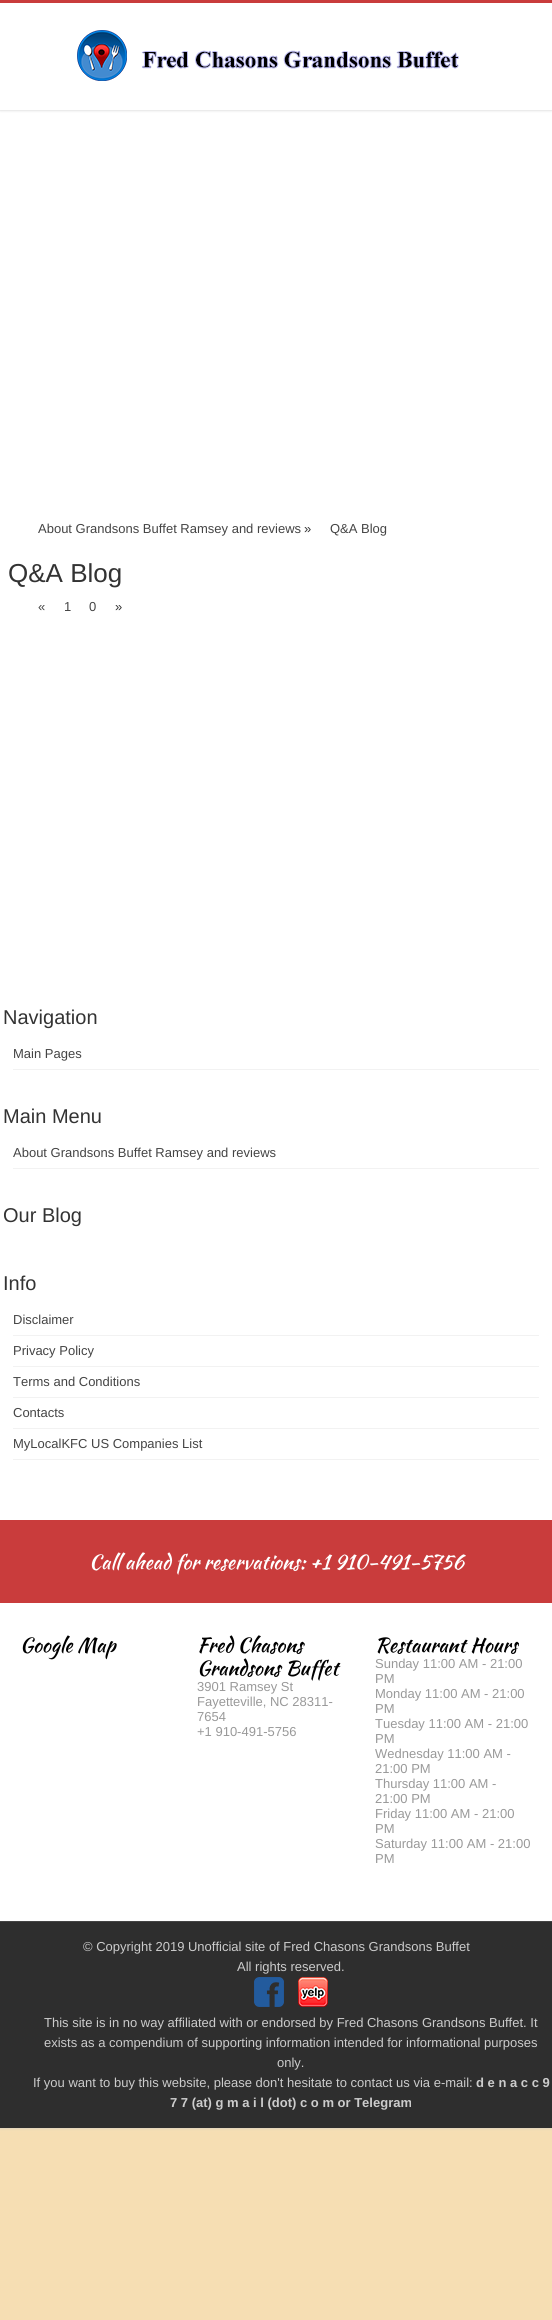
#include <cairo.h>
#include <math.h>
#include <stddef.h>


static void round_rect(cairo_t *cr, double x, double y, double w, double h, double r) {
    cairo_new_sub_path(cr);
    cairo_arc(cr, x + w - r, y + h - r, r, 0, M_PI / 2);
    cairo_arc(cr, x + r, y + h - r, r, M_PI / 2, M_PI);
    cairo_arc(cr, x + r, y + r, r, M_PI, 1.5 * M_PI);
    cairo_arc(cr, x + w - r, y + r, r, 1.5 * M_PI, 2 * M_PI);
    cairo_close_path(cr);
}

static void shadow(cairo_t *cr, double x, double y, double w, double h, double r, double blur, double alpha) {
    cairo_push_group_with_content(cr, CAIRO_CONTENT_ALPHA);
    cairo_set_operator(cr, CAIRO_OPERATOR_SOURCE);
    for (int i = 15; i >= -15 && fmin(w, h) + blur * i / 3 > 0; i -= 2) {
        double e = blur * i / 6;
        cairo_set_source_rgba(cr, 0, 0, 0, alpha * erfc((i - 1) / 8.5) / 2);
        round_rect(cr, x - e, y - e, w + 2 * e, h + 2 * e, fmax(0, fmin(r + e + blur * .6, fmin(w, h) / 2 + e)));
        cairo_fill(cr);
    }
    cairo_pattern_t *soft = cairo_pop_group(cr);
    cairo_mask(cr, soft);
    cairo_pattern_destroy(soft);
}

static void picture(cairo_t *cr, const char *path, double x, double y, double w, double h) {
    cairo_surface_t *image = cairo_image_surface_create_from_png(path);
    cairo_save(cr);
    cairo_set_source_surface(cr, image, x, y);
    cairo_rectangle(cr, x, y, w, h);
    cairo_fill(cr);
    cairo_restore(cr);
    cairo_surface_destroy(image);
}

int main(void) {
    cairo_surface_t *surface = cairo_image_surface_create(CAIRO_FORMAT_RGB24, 552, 2320);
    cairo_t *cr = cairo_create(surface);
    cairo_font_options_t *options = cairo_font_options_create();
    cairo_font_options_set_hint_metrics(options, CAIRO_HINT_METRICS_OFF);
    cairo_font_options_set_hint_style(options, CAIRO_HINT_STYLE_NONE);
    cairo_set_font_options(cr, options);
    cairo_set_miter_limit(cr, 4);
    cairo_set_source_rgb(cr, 0.961, 0.871, 0.702);
    cairo_paint(cr);
    cairo_set_source_rgb(cr, 0.792, 0.792, 0.792);
    shadow(cr, 0, 0, 552, 2128, 0, 1.5, 1);
    cairo_set_source_rgb(cr, 1, 1, 1);
    cairo_rectangle(cr, 0, 3, 552, 1918);
    cairo_fill(cr);
    cairo_save(cr);
    cairo_rectangle(cr, 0, 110, 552, 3);
    cairo_clip(cr);
    cairo_set_source_rgb(cr, 0.792, 0.792, 0.792);
    shadow(cr, 0, 0, 552, 110, 0, 1.5, 1);
    cairo_restore(cr);
    cairo_set_source_rgb(cr, 0.788, 0.235, 0.235);
    cairo_rectangle(cr, 0, 0, 552, 3);
    cairo_fill(cr);
    picture(cr, "img1.png", 77, 30, 382, 51);
    cairo_select_font_face(cr, "Liberation Sans", CAIRO_FONT_SLANT_NORMAL, CAIRO_FONT_WEIGHT_NORMAL);
    cairo_set_font_size(cr, 13);
    cairo_set_source_rgb(cr, 0.267, 0.267, 0.267);
    cairo_move_to(cr, 38, 533);
    cairo_show_text(cr, "About Grandsons Buffet Ramsey and reviews");
    cairo_set_source_rgb(cr, 0.2, 0.2, 0.2);
    cairo_move_to(cr, 304, 533);
    cairo_show_text(cr, "»");
    cairo_set_source_rgb(cr, 0.267, 0.267, 0.267);
    cairo_move_to(cr, 330, 533);
    cairo_show_text(cr, "Q&A Blog");
    cairo_set_font_size(cr, 26);
    cairo_set_source_rgb(cr, 0.2, 0.2, 0.2);
    cairo_move_to(cr, 8, 582);
    cairo_show_text(cr, "Q&A Blog");
    cairo_set_font_size(cr, 13);
    cairo_set_source_rgb(cr, 0.267, 0.267, 0.267);
    cairo_move_to(cr, 38, 611);
    cairo_show_text(cr, "«");
    cairo_move_to(cr, 64, 611);
    cairo_show_text(cr, "1");
    cairo_move_to(cr, 89, 611);
    cairo_show_text(cr, "0");
    cairo_set_source_rgb(cr, 0.2, 0.2, 0.2);
    cairo_move_to(cr, 115, 611);
    cairo_show_text(cr, "»");
    cairo_set_font_size(cr, 20);
    cairo_move_to(cr, 3, 1024);
    cairo_show_text(cr, "Navigation");
    cairo_set_source_rgb(cr, 0.949, 0.949, 0.949);
    cairo_rectangle(cr, 13, 1069, 526, 1);
    cairo_fill(cr);
    cairo_set_font_size(cr, 13);
    cairo_set_source_rgb(cr, 0.267, 0.267, 0.267);
    cairo_move_to(cr, 13, 1058);
    cairo_show_text(cr, "Main Pages");
    cairo_set_font_size(cr, 20);
    cairo_set_source_rgb(cr, 0.2, 0.2, 0.2);
    cairo_move_to(cr, 3, 1123);
    cairo_show_text(cr, "Main Menu");
    cairo_set_source_rgb(cr, 0.949, 0.949, 0.949);
    cairo_rectangle(cr, 13, 1168, 526, 1);
    cairo_fill(cr);
    cairo_set_font_size(cr, 13);
    cairo_set_source_rgb(cr, 0.267, 0.267, 0.267);
    cairo_move_to(cr, 13, 1157);
    cairo_show_text(cr, "About Grandsons Buffet Ramsey and reviews");
    cairo_set_font_size(cr, 20);
    cairo_set_source_rgb(cr, 0.2, 0.2, 0.2);
    cairo_move_to(cr, 3, 1222);
    cairo_show_text(cr, "Our Blog");
    cairo_move_to(cr, 3, 1290);
    cairo_show_text(cr, "Info");
    cairo_set_source_rgb(cr, 0.949, 0.949, 0.949);
    cairo_rectangle(cr, 13, 1335, 526, 1);
    cairo_fill(cr);
    cairo_set_font_size(cr, 13);
    cairo_set_source_rgb(cr, 0.267, 0.267, 0.267);
    cairo_move_to(cr, 13, 1324);
    cairo_show_text(cr, "Disclaimer");
    cairo_set_source_rgb(cr, 0.949, 0.949, 0.949);
    cairo_rectangle(cr, 13, 1366, 526, 1);
    cairo_fill(cr);
    cairo_set_source_rgb(cr, 0.267, 0.267, 0.267);
    cairo_move_to(cr, 13, 1355);
    cairo_show_text(cr, "Privacy Policy");
    cairo_set_source_rgb(cr, 0.949, 0.949, 0.949);
    cairo_rectangle(cr, 13, 1397, 526, 1);
    cairo_fill(cr);
    cairo_set_source_rgb(cr, 0.267, 0.267, 0.267);
    cairo_move_to(cr, 13, 1386);
    cairo_show_text(cr, "Terms and Conditions");
    cairo_set_source_rgb(cr, 0.949, 0.949, 0.949);
    cairo_rectangle(cr, 13, 1428, 526, 1);
    cairo_fill(cr);
    cairo_set_source_rgb(cr, 0.267, 0.267, 0.267);
    cairo_move_to(cr, 13, 1417);
    cairo_show_text(cr, "Contacts");
    cairo_set_source_rgb(cr, 0.949, 0.949, 0.949);
    cairo_rectangle(cr, 13, 1459, 526, 1);
    cairo_fill(cr);
    cairo_set_source_rgb(cr, 0.267, 0.267, 0.267);
    cairo_move_to(cr, 13, 1448);
    cairo_show_text(cr, "MyLocalKFC US Companies List");
    cairo_set_source_rgb(cr, 0.788, 0.235, 0.235);
    cairo_rectangle(cr, 0, 1520, 552, 83);
    cairo_fill(cr);
    cairo_select_font_face(cr, "Kaushan Script", CAIRO_FONT_SLANT_NORMAL, CAIRO_FONT_WEIGHT_NORMAL);
    cairo_set_font_size(cr, 20);
    cairo_set_source_rgb(cr, 1, 1, 1);
    cairo_move_to(cr, 89, 1569);
    cairo_show_text(cr, "Call ahead for reservations: +1 910-491-5756");
    cairo_set_source_rgb(cr, 0, 0, 0);
    cairo_move_to(cr, 20, 1652);
    cairo_show_text(cr, "Google Map");
    cairo_move_to(cr, 197, 1652);
    cairo_show_text(cr, "Fred Chasons");
    cairo_move_to(cr, 197, 1675);
    cairo_show_text(cr, "Grandsons Buffet");
    cairo_select_font_face(cr, "Liberation Sans", CAIRO_FONT_SLANT_NORMAL, CAIRO_FONT_WEIGHT_NORMAL);
    cairo_set_font_size(cr, 13);
    cairo_set_source_rgb(cr, 0.6, 0.6, 0.6);
    cairo_move_to(cr, 197, 1691);
    cairo_show_text(cr, "3901 Ramsey St");
    cairo_move_to(cr, 197, 1706);
    cairo_show_text(cr, "Fayetteville, NC 28311-");
    cairo_move_to(cr, 197, 1721);
    cairo_show_text(cr, "7654");
    cairo_move_to(cr, 197, 1736);
    cairo_show_text(cr, "+1 910-491-5756");
    cairo_select_font_face(cr, "Kaushan Script", CAIRO_FONT_SLANT_NORMAL, CAIRO_FONT_WEIGHT_NORMAL);
    cairo_set_font_size(cr, 20);
    cairo_set_source_rgb(cr, 0, 0, 0);
    cairo_move_to(cr, 375, 1652);
    cairo_show_text(cr, "Restaurant Hours");
    cairo_select_font_face(cr, "Liberation Sans", CAIRO_FONT_SLANT_NORMAL, CAIRO_FONT_WEIGHT_NORMAL);
    cairo_set_font_size(cr, 13);
    cairo_set_source_rgb(cr, 0.6, 0.6, 0.6);
    cairo_move_to(cr, 375, 1668);
    cairo_show_text(cr, "Sunday 11:00 AM - 21:00");
    cairo_move_to(cr, 375, 1683);
    cairo_show_text(cr, "PM");
    cairo_move_to(cr, 375, 1698);
    cairo_show_text(cr, "Monday 11:00 AM - 21:00");
    cairo_move_to(cr, 375, 1713);
    cairo_show_text(cr, "PM");
    cairo_move_to(cr, 375, 1728);
    cairo_show_text(cr, "Tuesday 11:00 AM - 21:00");
    cairo_move_to(cr, 375, 1743);
    cairo_show_text(cr, "PM");
    cairo_move_to(cr, 375, 1758);
    cairo_show_text(cr, "Wednesday 11:00 AM -");
    cairo_move_to(cr, 375, 1773);
    cairo_show_text(cr, "21:00 PM");
    cairo_move_to(cr, 375, 1788);
    cairo_show_text(cr, "Thursday 11:00 AM -");
    cairo_move_to(cr, 375, 1803);
    cairo_show_text(cr, "21:00 PM");
    cairo_move_to(cr, 375, 1818);
    cairo_show_text(cr, "Friday 11:00 AM - 21:00");
    cairo_move_to(cr, 375, 1833);
    cairo_show_text(cr, "PM");
    cairo_move_to(cr, 375, 1848);
    cairo_show_text(cr, "Saturday 11:00 AM - 21:00");
    cairo_move_to(cr, 375, 1863);
    cairo_show_text(cr, "PM");
    cairo_set_source_rgb(cr, 0.18, 0.18, 0.18);
    cairo_rectangle(cr, 0, 1922, 552, 206);
    cairo_fill(cr);
    cairo_set_source_rgb(cr, 0.267, 0.267, 0.267);
    cairo_rectangle(cr, 0, 1921, 552, 1);
    cairo_fill(cr);
    cairo_set_source_rgb(cr, 0.8, 0.8, 0.8);
    cairo_move_to(cr, 83, 1951);
    cairo_show_text(cr, "© Copyright 2019 Unofficial site of Fred Chasons Grandsons Buffet");
    cairo_move_to(cr, 237, 1971);
    cairo_show_text(cr, "All rights reserved.");
    picture(cr, "img2.png", 254, 1977, 30, 30);
    picture(cr, "img3.png", 298, 1977, 30, 30);
    cairo_move_to(cr, 44, 2027);
    cairo_show_text(cr, "This site is in no way affiliated with or endorsed by Fred Chasons Grandsons Buffet. It");
    cairo_move_to(cr, 44, 2047);
    cairo_show_text(cr, "exists as a compendium of supporting information intended for informational purposes");
    cairo_move_to(cr, 277, 2067);
    cairo_show_text(cr, "only.");
    cairo_move_to(cr, 33, 2087);
    cairo_show_text(cr, "If you want to buy this website, please don't hesitate to contact us via e-mail:");
    cairo_select_font_face(cr, "Liberation Sans", CAIRO_FONT_SLANT_NORMAL, CAIRO_FONT_WEIGHT_BOLD);
    cairo_move_to(cr, 476, 2087);
    cairo_show_text(cr, "d e n a c c 9");
    cairo_move_to(cr, 170, 2107);
    cairo_show_text(cr, "7 7 (at) g m a i l (dot) c o m or Telegram");
    cairo_surface_write_to_png(surface, "page.png");
    cairo_font_options_destroy(options);
    cairo_destroy(cr);
    cairo_surface_destroy(surface);
    return 0;
}
